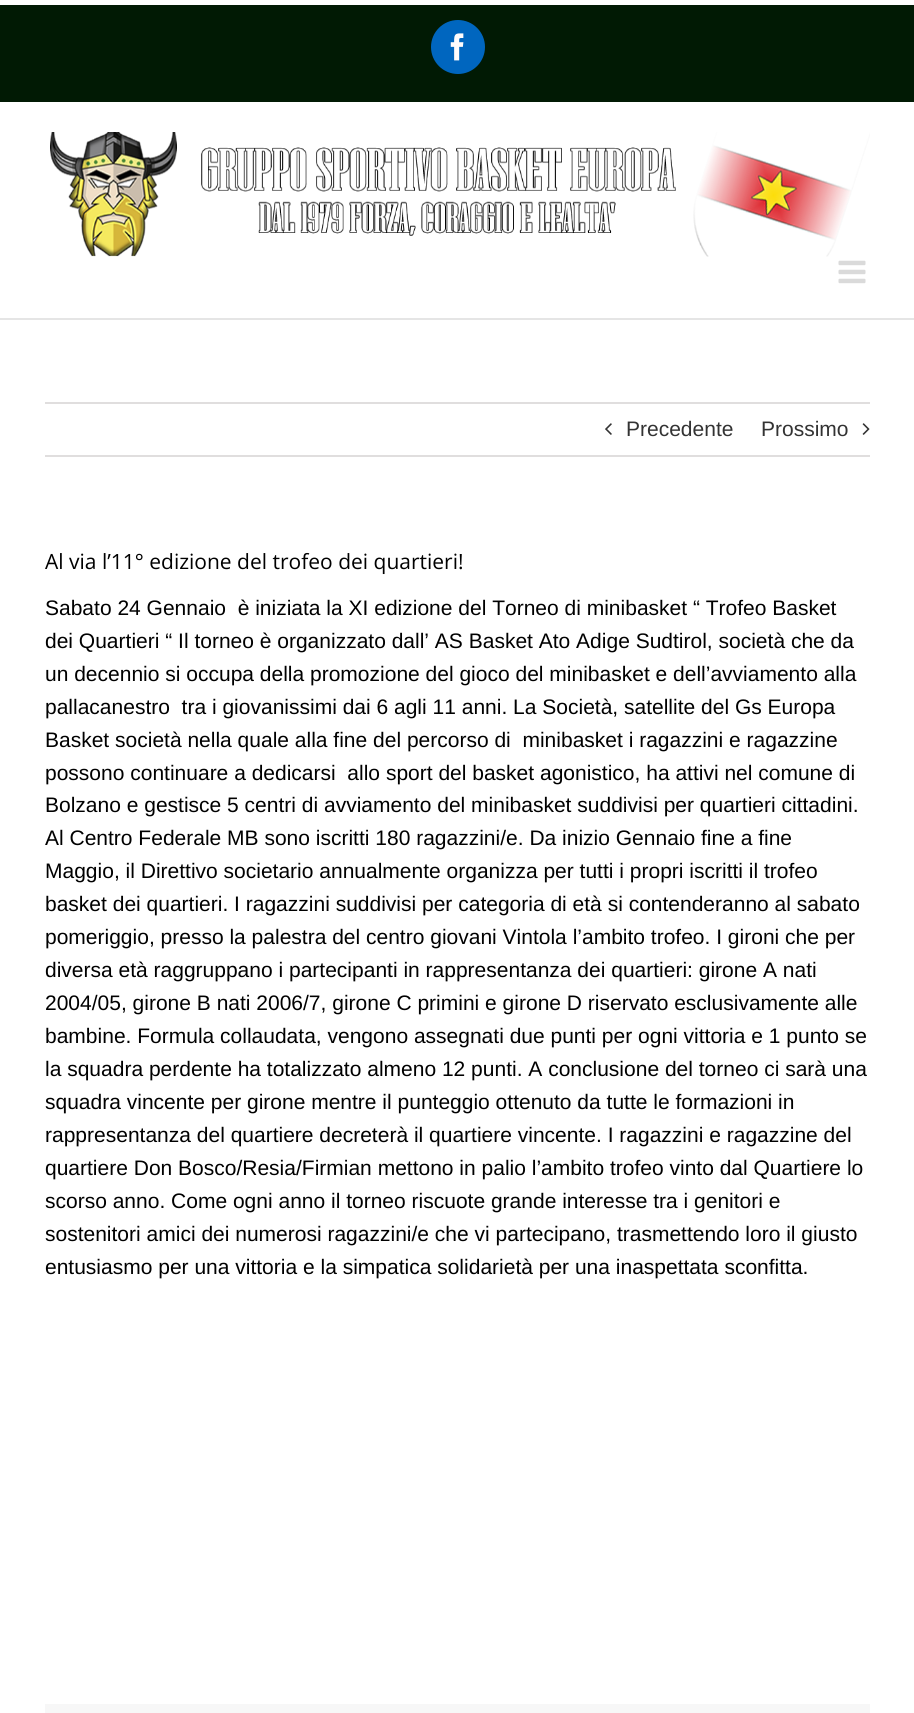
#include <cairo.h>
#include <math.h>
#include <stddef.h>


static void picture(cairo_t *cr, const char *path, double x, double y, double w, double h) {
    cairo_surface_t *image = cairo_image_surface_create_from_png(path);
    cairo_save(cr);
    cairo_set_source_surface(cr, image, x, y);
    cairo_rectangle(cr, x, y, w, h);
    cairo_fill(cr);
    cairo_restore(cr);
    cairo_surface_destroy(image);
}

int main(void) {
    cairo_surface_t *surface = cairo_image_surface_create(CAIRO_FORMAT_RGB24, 914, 1713);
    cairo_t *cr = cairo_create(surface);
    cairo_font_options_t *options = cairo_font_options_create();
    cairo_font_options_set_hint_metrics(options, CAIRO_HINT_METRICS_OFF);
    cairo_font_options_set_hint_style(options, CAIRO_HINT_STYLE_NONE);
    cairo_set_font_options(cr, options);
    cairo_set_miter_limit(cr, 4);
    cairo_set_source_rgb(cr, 1, 1, 1);
    cairo_paint(cr);
    picture(cr, "img1.png", 0, 5, 914, 97);
    cairo_set_source_rgb(cr, 0, 0.4, 0.749);
    cairo_arc(cr, 458, 47, 26, 0, 2 * M_PI);
    cairo_fill_preserve(cr);
    cairo_stroke(cr);
    picture(cr, "img2.png", 450, 33, 14, 28);
    cairo_set_source_rgb(cr, 0.898, 0.898, 0.898);
    cairo_rectangle(cr, 0, 318, 914, 2);
    cairo_fill(cr);
    picture(cr, "img3.png", 50, 132, 820, 125);
    picture(cr, "img4.png", 838, 260, 28, 24);
    cairo_set_source_rgb(cr, 0.878, 0.871, 0.871);
    cairo_rectangle(cr, 45, 402, 825, 2);
    cairo_fill(cr);
    cairo_rectangle(cr, 45, 455, 825, 2);
    cairo_fill(cr);
    picture(cr, "img5.png", 605, 423, 7, 12);
    cairo_select_font_face(cr, "Liberation Sans", CAIRO_FONT_SLANT_NORMAL, CAIRO_FONT_WEIGHT_NORMAL);
    cairo_set_font_size(cr, 21);
    cairo_set_source_rgb(cr, 0.2, 0.2, 0.2);
    cairo_move_to(cr, 626, 436);
    cairo_show_text(cr, "Precedente");
    cairo_move_to(cr, 761, 436);
    cairo_show_text(cr, "Prossimo");
    picture(cr, "img6.png", 862, 423, 8, 12);
    cairo_select_font_face(cr, "Open Sans", CAIRO_FONT_SLANT_NORMAL, CAIRO_FONT_WEIGHT_NORMAL);
    cairo_set_source_rgb(cr, 0, 0, 0);
    cairo_move_to(cr, 45, 569);
    cairo_show_text(cr, "Al via l’11° edizione del trofeo dei quartieri!");
    cairo_select_font_face(cr, "Liberation Sans", CAIRO_FONT_SLANT_NORMAL, CAIRO_FONT_WEIGHT_NORMAL);
    cairo_move_to(cr, 45, 615);
    cairo_show_text(cr, "Sabato 24 Gennaio  è iniziata la XI edizione del Torneo di minibasket “ Trofeo Basket");
    cairo_move_to(cr, 45, 648);
    cairo_show_text(cr, "dei Quartieri “ Il torneo è organizzato dall’ AS Basket Ato Adige Sudtirol, società che da");
    cairo_move_to(cr, 45, 681);
    cairo_show_text(cr, "un decennio si occupa della promozione del gioco del minibasket e dell’avviamento alla");
    cairo_move_to(cr, 45, 714);
    cairo_show_text(cr, "pallacanestro  tra i giovanissimi dai 6 agli 11 anni. La Società, satellite del Gs Europa");
    cairo_move_to(cr, 45, 747);
    cairo_show_text(cr, "Basket società nella quale alla fine del percorso di  minibasket i ragazzini e ragazzine");
    cairo_move_to(cr, 45, 780);
    cairo_show_text(cr, "possono continuare a dedicarsi  allo sport del basket agonistico, ha attivi nel comune di");
    cairo_move_to(cr, 45, 812);
    cairo_show_text(cr, "Bolzano e gestisce 5 centri di avviamento del minibasket suddivisi per quartieri cittadini.");
    cairo_move_to(cr, 45, 845);
    cairo_show_text(cr, "Al Centro Federale MB sono iscritti 180 ragazzini/e. Da inizio Gennaio fine a fine");
    cairo_move_to(cr, 45, 878);
    cairo_show_text(cr, "Maggio, il Direttivo societario annualmente organizza per tutti i propri iscritti il trofeo");
    cairo_move_to(cr, 45, 911);
    cairo_show_text(cr, "basket dei quartieri. I ragazzini suddivisi per categoria di età si contenderanno al sabato");
    cairo_move_to(cr, 45, 944);
    cairo_show_text(cr, "pomeriggio, presso la palestra del centro giovani Vintola l’ambito trofeo. I gironi che per");
    cairo_move_to(cr, 45, 977);
    cairo_show_text(cr, "diversa età raggruppano i partecipanti in rappresentanza dei quartieri: girone A nati");
    cairo_move_to(cr, 45, 1010);
    cairo_show_text(cr, "2004/05, girone B nati 2006/7, girone C primini e girone D riservato esclusivamente alle");
    cairo_move_to(cr, 45, 1043);
    cairo_show_text(cr, "bambine. Formula collaudata, vengono assegnati due punti per ogni vittoria e 1 punto se");
    cairo_move_to(cr, 45, 1076);
    cairo_show_text(cr, "la squadra perdente ha totalizzato almeno 12 punti. A conclusione del torneo ci sarà una");
    cairo_move_to(cr, 45, 1109);
    cairo_show_text(cr, "squadra vincente per girone mentre il punteggio ottenuto da tutte le formazioni in");
    cairo_move_to(cr, 45, 1142);
    cairo_show_text(cr, "rappresentanza del quartiere decreterà il quartiere vincente. I ragazzini e ragazzine del");
    cairo_move_to(cr, 45, 1175);
    cairo_show_text(cr, "quartiere Don Bosco/Resia/Firmian mettono in palio l’ambito trofeo vinto dal Quartiere lo");
    cairo_move_to(cr, 45, 1208);
    cairo_show_text(cr, "scorso anno. Come ogni anno il torneo riscuote grande interesse tra i genitori e");
    cairo_move_to(cr, 45, 1241);
    cairo_show_text(cr, "sostenitori amici dei numerosi ragazzini/e che vi partecipano, trasmettendo loro il giusto");
    cairo_move_to(cr, 45, 1274);
    cairo_show_text(cr, "entusiasmo per una vittoria e la simpatica solidarietà per una inaspettata sconfitta.");
    cairo_set_source_rgb(cr, 0.965, 0.965, 0.965);
    cairo_rectangle(cr, 45, 1704, 825, 9);
    cairo_fill(cr);
    cairo_surface_write_to_png(surface, "page.png");
    cairo_font_options_destroy(options);
    cairo_destroy(cr);
    cairo_surface_destroy(surface);
    return 0;
}
